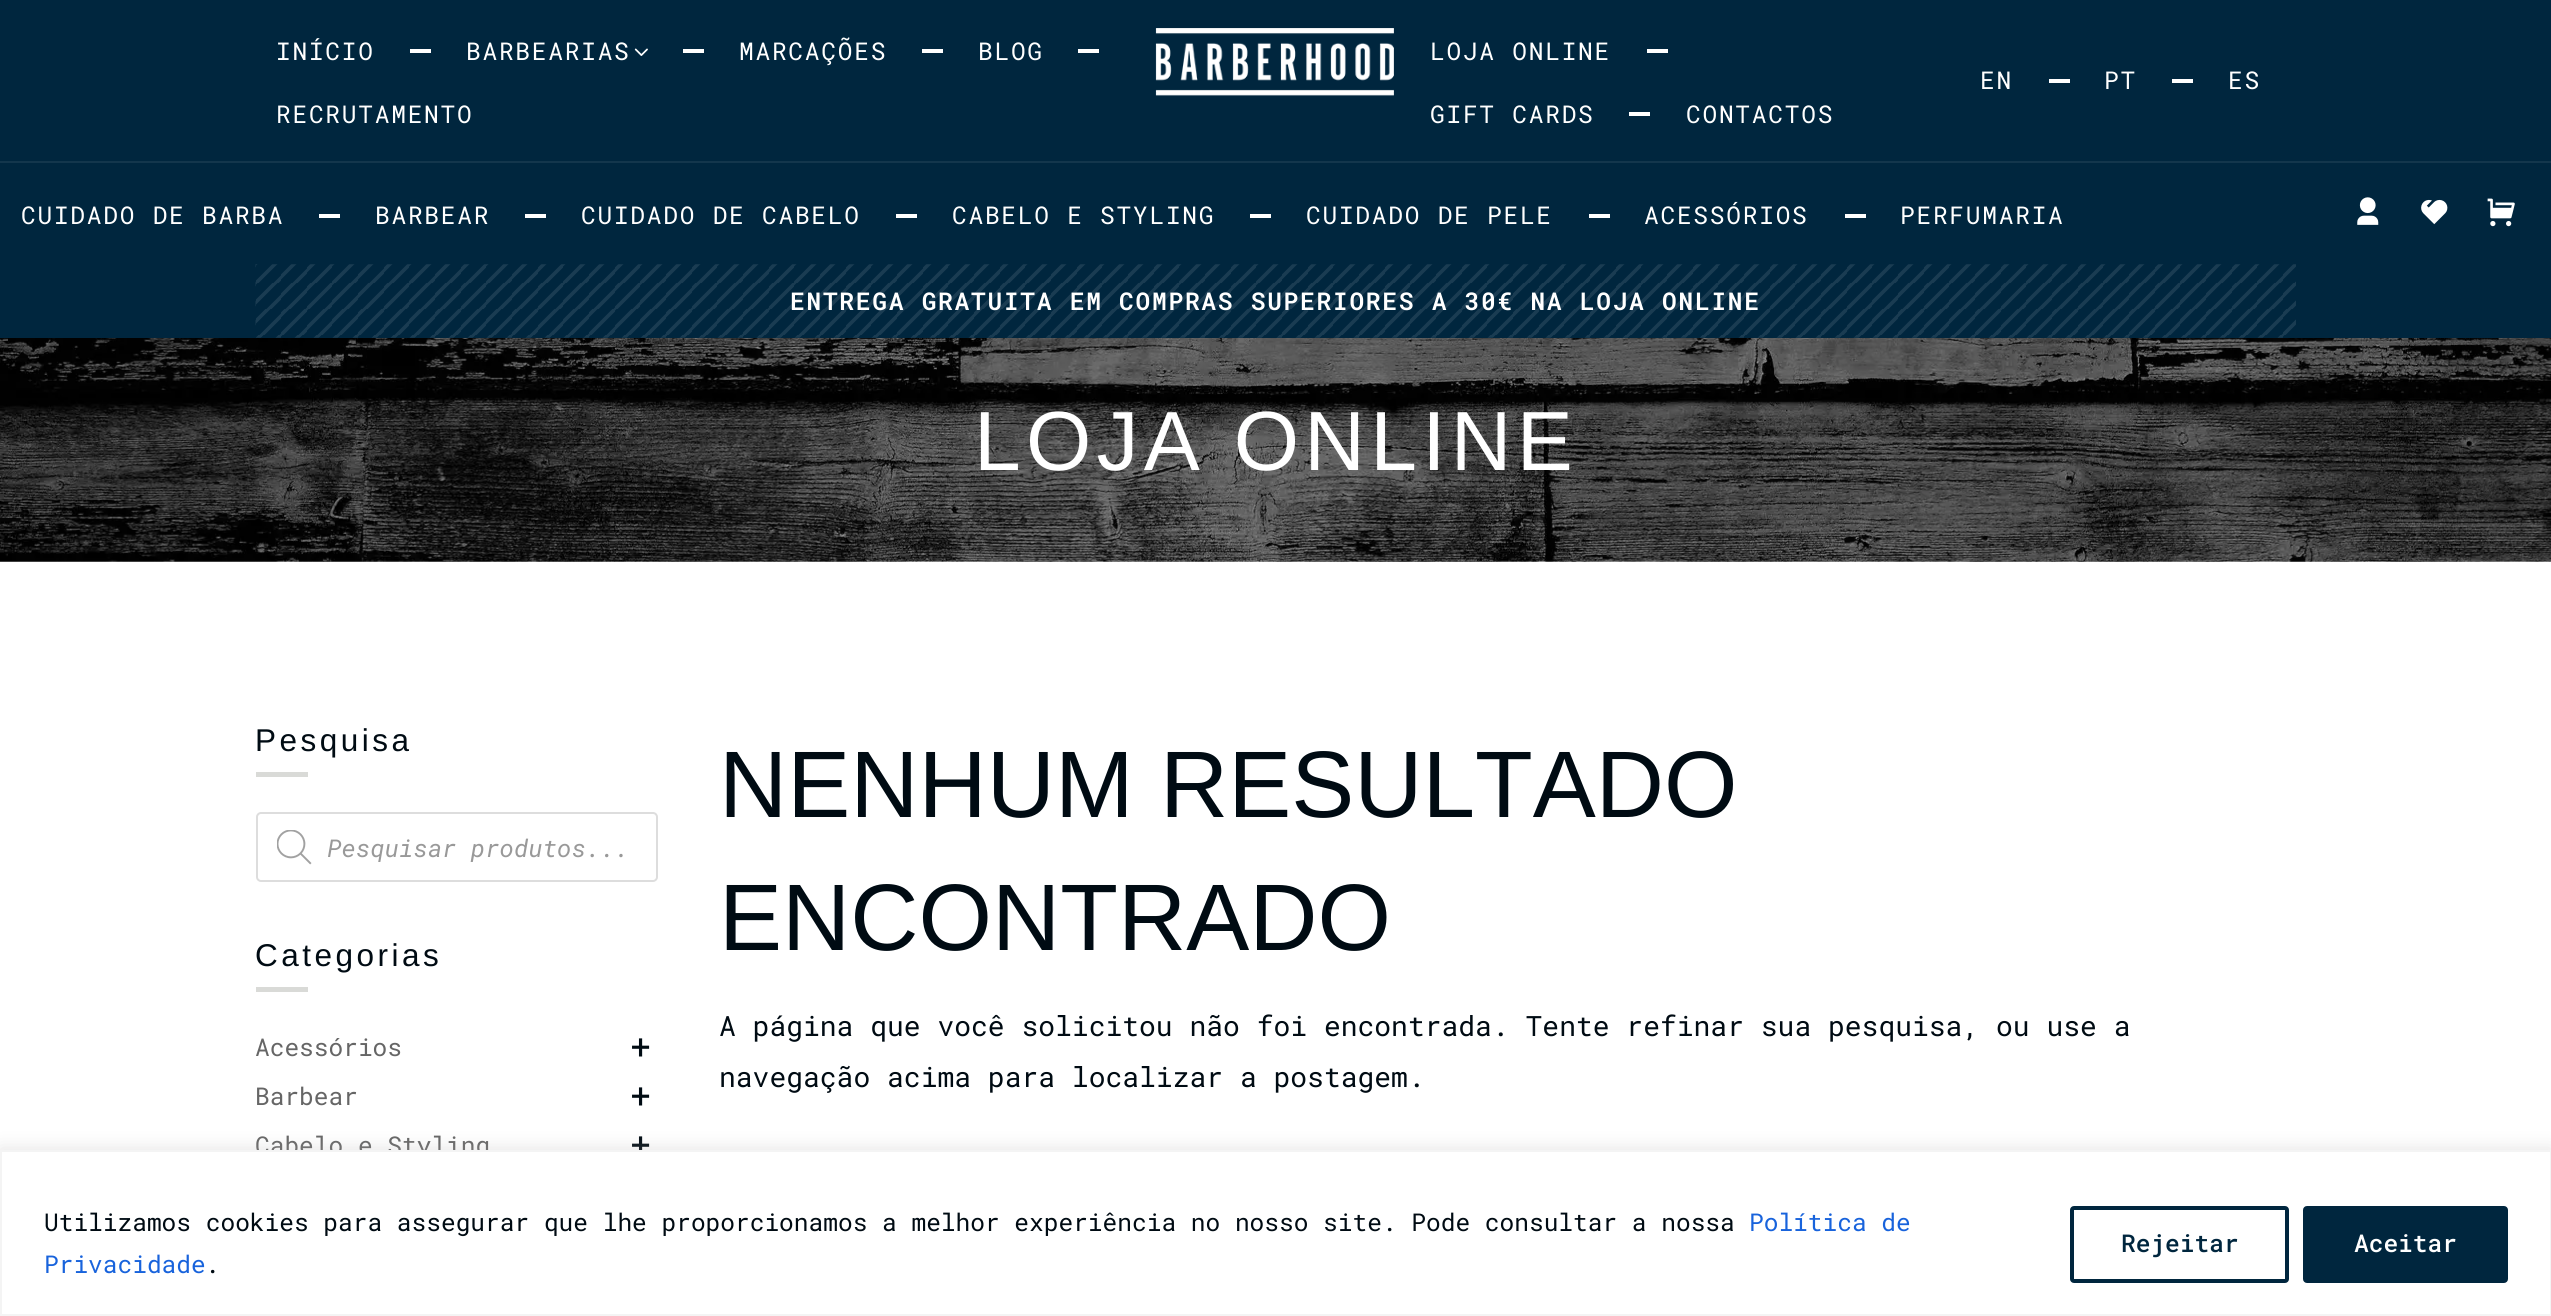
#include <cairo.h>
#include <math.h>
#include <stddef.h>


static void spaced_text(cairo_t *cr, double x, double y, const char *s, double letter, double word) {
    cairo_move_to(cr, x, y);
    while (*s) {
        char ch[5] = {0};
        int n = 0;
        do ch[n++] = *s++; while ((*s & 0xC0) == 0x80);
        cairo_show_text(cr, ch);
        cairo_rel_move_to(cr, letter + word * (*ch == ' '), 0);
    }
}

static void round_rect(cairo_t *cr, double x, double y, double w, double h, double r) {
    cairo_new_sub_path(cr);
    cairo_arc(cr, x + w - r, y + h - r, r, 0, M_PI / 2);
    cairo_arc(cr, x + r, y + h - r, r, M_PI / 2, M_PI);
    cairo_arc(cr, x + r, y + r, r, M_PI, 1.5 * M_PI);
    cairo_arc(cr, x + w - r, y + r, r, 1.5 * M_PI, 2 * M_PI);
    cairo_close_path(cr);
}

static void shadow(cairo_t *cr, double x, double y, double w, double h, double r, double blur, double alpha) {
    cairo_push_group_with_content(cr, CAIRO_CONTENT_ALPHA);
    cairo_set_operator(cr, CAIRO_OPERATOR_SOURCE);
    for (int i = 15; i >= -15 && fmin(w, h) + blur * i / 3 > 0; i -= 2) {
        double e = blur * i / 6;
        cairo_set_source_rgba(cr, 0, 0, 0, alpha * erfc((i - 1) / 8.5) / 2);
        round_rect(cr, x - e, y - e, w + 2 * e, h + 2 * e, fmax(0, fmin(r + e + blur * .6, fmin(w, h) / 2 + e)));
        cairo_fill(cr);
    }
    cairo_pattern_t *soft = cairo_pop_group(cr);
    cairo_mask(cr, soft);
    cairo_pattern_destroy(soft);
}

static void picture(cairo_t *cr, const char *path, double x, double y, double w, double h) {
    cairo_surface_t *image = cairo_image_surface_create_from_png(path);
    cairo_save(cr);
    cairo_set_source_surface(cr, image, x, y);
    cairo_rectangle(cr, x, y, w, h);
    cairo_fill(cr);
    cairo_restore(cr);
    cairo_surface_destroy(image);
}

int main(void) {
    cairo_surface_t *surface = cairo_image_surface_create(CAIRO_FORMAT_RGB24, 2551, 1316);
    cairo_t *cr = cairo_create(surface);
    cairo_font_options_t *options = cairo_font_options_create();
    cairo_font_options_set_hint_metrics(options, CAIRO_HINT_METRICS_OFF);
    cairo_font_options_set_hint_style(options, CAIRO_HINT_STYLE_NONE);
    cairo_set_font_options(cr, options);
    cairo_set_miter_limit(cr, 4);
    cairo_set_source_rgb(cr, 1, 1, 1);
    cairo_paint(cr);
    cairo_set_source_rgb(cr, 0, 0.149, 0.243);
    cairo_rectangle(cr, 0, 0, 2551, 338);
    cairo_fill(cr);
    cairo_select_font_face(cr, "Roboto Mono", CAIRO_FONT_SLANT_NORMAL, CAIRO_FONT_WEIGHT_NORMAL);
    cairo_set_font_size(cr, 24.5);
    cairo_set_source_rgb(cr, 1, 1, 1);
    spaced_text(cr, 276, 60, "INÍCIO", 1.75, 0);
    cairo_rectangle(cr, 410, 49, 21, 4);
    cairo_fill(cr);
    spaced_text(cr, 466, 60, "BARBEARIAS", 1.75, 0);
    picture(cr, "img1.png", 634, 48, 14, 8);
    cairo_rectangle(cr, 683, 49, 21, 4);
    cairo_fill(cr);
    spaced_text(cr, 739, 60, "MARCAÇÕES", 1.75, 0);
    cairo_rectangle(cr, 922, 49, 21, 4);
    cairo_fill(cr);
    spaced_text(cr, 978, 60, "BLOG", 1.75, 0);
    cairo_rectangle(cr, 1078, 49, 21, 4);
    cairo_fill(cr);
    spaced_text(cr, 276, 123, "RECRUTAMENTO", 1.75, 0);
    picture(cr, "img2.png", 1155, 28, 239, 68);
    spaced_text(cr, 1430, 60, "LOJA ONLINE", 1.75, 0);
    cairo_rectangle(cr, 1647, 49, 21, 4);
    cairo_fill(cr);
    spaced_text(cr, 1430, 123, "GIFT CARDS", 1.75, 0);
    cairo_rectangle(cr, 1629, 112, 21, 4);
    cairo_fill(cr);
    spaced_text(cr, 1686, 123, "CONTACTOS", 1.75, 0);
    spaced_text(cr, 1980, 89, "EN", 1.75, 0);
    cairo_rectangle(cr, 2049, 79, 21, 4);
    cairo_fill(cr);
    spaced_text(cr, 2104, 89, "PT", 1.75, 0);
    cairo_rectangle(cr, 2172, 79, 21, 4);
    cairo_fill(cr);
    spaced_text(cr, 2228, 89, "ES", 1.75, 0);
    cairo_set_source_rgb(cr, 0.078, 0.212, 0.298);
    cairo_rectangle(cr, 0, 161, 2551, 2);
    cairo_fill(cr);
    cairo_set_source_rgb(cr, 1, 1, 1);
    spaced_text(cr, 21, 224, "CUIDADO DE BARBA", 1.75, 0);
    cairo_rectangle(cr, 319, 214, 21, 4);
    cairo_fill(cr);
    spaced_text(cr, 375, 224, "BARBEAR", 1.75, 0);
    cairo_rectangle(cr, 525, 214, 21, 4);
    cairo_fill(cr);
    spaced_text(cr, 581, 224, "CUIDADO DE CABELO", 1.75, 0);
    cairo_rectangle(cr, 896, 214, 21, 4);
    cairo_fill(cr);
    spaced_text(cr, 952, 224, "CABELO E STYLING", 1.75, 0);
    cairo_rectangle(cr, 1250, 214, 21, 4);
    cairo_fill(cr);
    spaced_text(cr, 1306, 224, "CUIDADO DE PELE", 1.75, 0);
    cairo_rectangle(cr, 1589, 214, 21, 4);
    cairo_fill(cr);
    spaced_text(cr, 1644, 224, "ACESSÓRIOS", 1.75, 0);
    cairo_rectangle(cr, 1845, 214, 21, 4);
    cairo_fill(cr);
    spaced_text(cr, 1900, 224, "PERFUMARIA", 1.75, 0);
    picture(cr, "img3.png", 2357, 197, 22, 28);
    picture(cr, "img4.png", 2421, 199, 27, 26);
    picture(cr, "img5.png", 2487, 198, 28, 29);
    picture(cr, "img6.png", 255, 264, 2041, 74);
    cairo_select_font_face(cr, "Roboto Mono SemiBold", CAIRO_FONT_SLANT_NORMAL, CAIRO_FONT_WEIGHT_NORMAL);
    spaced_text(cr, 790, 310, "ENTREGA GRATUITA EM COMPRAS SUPERIORES A 30€ NA LOJA ONLINE", 1.75, 0);
    picture(cr, "img7.png", 0, 338, 2551, 224);
    cairo_select_font_face(cr, "Liberation Sans", CAIRO_FONT_SLANT_NORMAL, CAIRO_FONT_WEIGHT_NORMAL);
    cairo_set_font_size(cr, 84);
    spaced_text(cr, 974, 470, "LOJA ONLINE", 5.25, 0);
    cairo_set_font_size(cr, 31.5);
    cairo_set_source_rgb(cr, 0, 0.043, 0.075);
    spaced_text(cr, 255, 751, "Pesquisa", 3.5, 0);
    cairo_set_source_rgb(cr, 0.851, 0.855, 0.843);
    cairo_rectangle(cr, 256, 772, 52, 5);
    cairo_fill(cr);
    round_rect(cr, 257, 813, 400, 68, 4);
    cairo_set_source_rgb(cr, 0.867, 0.867, 0.867);
    cairo_stroke(cr);
    picture(cr, "img8.png", 277, 830, 35, 35);
    cairo_select_font_face(cr, "Roboto Mono", CAIRO_FONT_SLANT_ITALIC, CAIRO_FONT_WEIGHT_NORMAL);
    cairo_set_font_size(cr, 24.5);
    cairo_set_source_rgb(cr, 0.6, 0.6, 0.6);
    cairo_move_to(cr, 327, 857);
    cairo_show_text(cr, "Pesquisar produtos...");
    cairo_select_font_face(cr, "Liberation Sans", CAIRO_FONT_SLANT_NORMAL, CAIRO_FONT_WEIGHT_NORMAL);
    cairo_set_font_size(cr, 31.5);
    cairo_set_source_rgb(cr, 0, 0.043, 0.075);
    spaced_text(cr, 255, 966, "Categorias", 3.5, 0);
    cairo_set_source_rgb(cr, 0.851, 0.855, 0.843);
    cairo_rectangle(cr, 256, 987, 52, 5);
    cairo_fill(cr);
    cairo_select_font_face(cr, "Roboto Mono", CAIRO_FONT_SLANT_NORMAL, CAIRO_FONT_WEIGHT_NORMAL);
    cairo_set_font_size(cr, 24.5);
    cairo_set_source_rgb(cr, 0.4, 0.4, 0.4);
    cairo_move_to(cr, 255, 1056);
    cairo_show_text(cr, "Acessórios");
    cairo_set_font_size(cr, 35);
    cairo_set_source_rgb(cr, 0, 0.043, 0.075);
    cairo_move_to(cr, 630, 1059);
    cairo_show_text(cr, "+");
    cairo_set_font_size(cr, 24.5);
    cairo_set_source_rgb(cr, 0.4, 0.4, 0.4);
    cairo_move_to(cr, 255, 1105);
    cairo_show_text(cr, "Barbear");
    cairo_set_font_size(cr, 35);
    cairo_set_source_rgb(cr, 0, 0.043, 0.075);
    cairo_move_to(cr, 630, 1108);
    cairo_show_text(cr, "+");
    cairo_set_font_size(cr, 24.5);
    cairo_set_source_rgb(cr, 0.4, 0.4, 0.4);
    cairo_move_to(cr, 255, 1154);
    cairo_show_text(cr, "Cabelo e Styling");
    cairo_set_font_size(cr, 35);
    cairo_set_source_rgb(cr, 0, 0.043, 0.075);
    cairo_move_to(cr, 630, 1157);
    cairo_show_text(cr, "+");
    cairo_select_font_face(cr, "Liberation Sans", CAIRO_FONT_SLANT_NORMAL, CAIRO_FONT_WEIGHT_NORMAL);
    cairo_set_font_size(cr, 94.5);
    cairo_move_to(cr, 719, 817);
    cairo_show_text(cr, "NENHUM RESULTADO");
    cairo_move_to(cr, 719, 950);
    cairo_show_text(cr, "ENCONTRADO");
    cairo_select_font_face(cr, "Roboto Mono", CAIRO_FONT_SLANT_NORMAL, CAIRO_FONT_WEIGHT_NORMAL);
    cairo_set_font_size(cr, 28);
    cairo_move_to(cr, 719, 1036);
    cairo_show_text(cr, "A página que você solicitou não foi encontrada. Tente refinar sua pesquisa, ou use a");
    cairo_move_to(cr, 719, 1087);
    cairo_show_text(cr, "navegação acima para localizar a postagem.");
    cairo_set_source_rgb(cr, 0.675, 0.671, 0.671);
    shadow(cr, 0, 1148, 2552, 166, 0, 9, 0.3);
    cairo_set_source_rgb(cr, 1, 1, 1);
    cairo_rectangle(cr, 1, 1151, 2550, 164);
    cairo_fill_preserve(cr);
    cairo_set_source_rgb(cr, 0.957, 0.957, 0.957);
    cairo_stroke(cr);
    cairo_set_font_size(cr, 24.5);
    cairo_set_source_rgb(cr, 0, 0.043, 0.075);
    cairo_move_to(cr, 44, 1231);
    cairo_show_text(cr, "Utilizamos cookies para assegurar que lhe proporcionamos a melhor experiência no nosso site. Pode consultar a nossa");
    cairo_set_source_rgb(cr, 0.094, 0.388, 0.863);
    cairo_move_to(cr, 1749, 1231);
    cairo_show_text(cr, "Política de");
    cairo_move_to(cr, 44, 1273);
    cairo_show_text(cr, "Privacidade");
    cairo_set_source_rgb(cr, 0, 0.043, 0.075);
    cairo_move_to(cr, 205, 1273);
    cairo_show_text(cr, ".");
    round_rect(cr, 2072, 1208, 215, 73, 2);
    cairo_set_source_rgb(cr, 0, 0.149, 0.243);
    cairo_set_line_width(cr, 4);
    cairo_stroke(cr);
    cairo_select_font_face(cr, "Roboto Mono Medium", CAIRO_FONT_SLANT_NORMAL, CAIRO_FONT_WEIGHT_NORMAL);
    cairo_move_to(cr, 2121, 1252);
    cairo_show_text(cr, "Rejeitar");
    round_rect(cr, 2305, 1208, 201, 73, 2);
    cairo_fill_preserve(cr);
    cairo_stroke(cr);
    cairo_set_source_rgb(cr, 1, 1, 1);
    cairo_move_to(cr, 2354, 1252);
    cairo_show_text(cr, "Aceitar");
    cairo_surface_write_to_png(surface, "page.png");
    cairo_font_options_destroy(options);
    cairo_destroy(cr);
    cairo_surface_destroy(surface);
    return 0;
}
